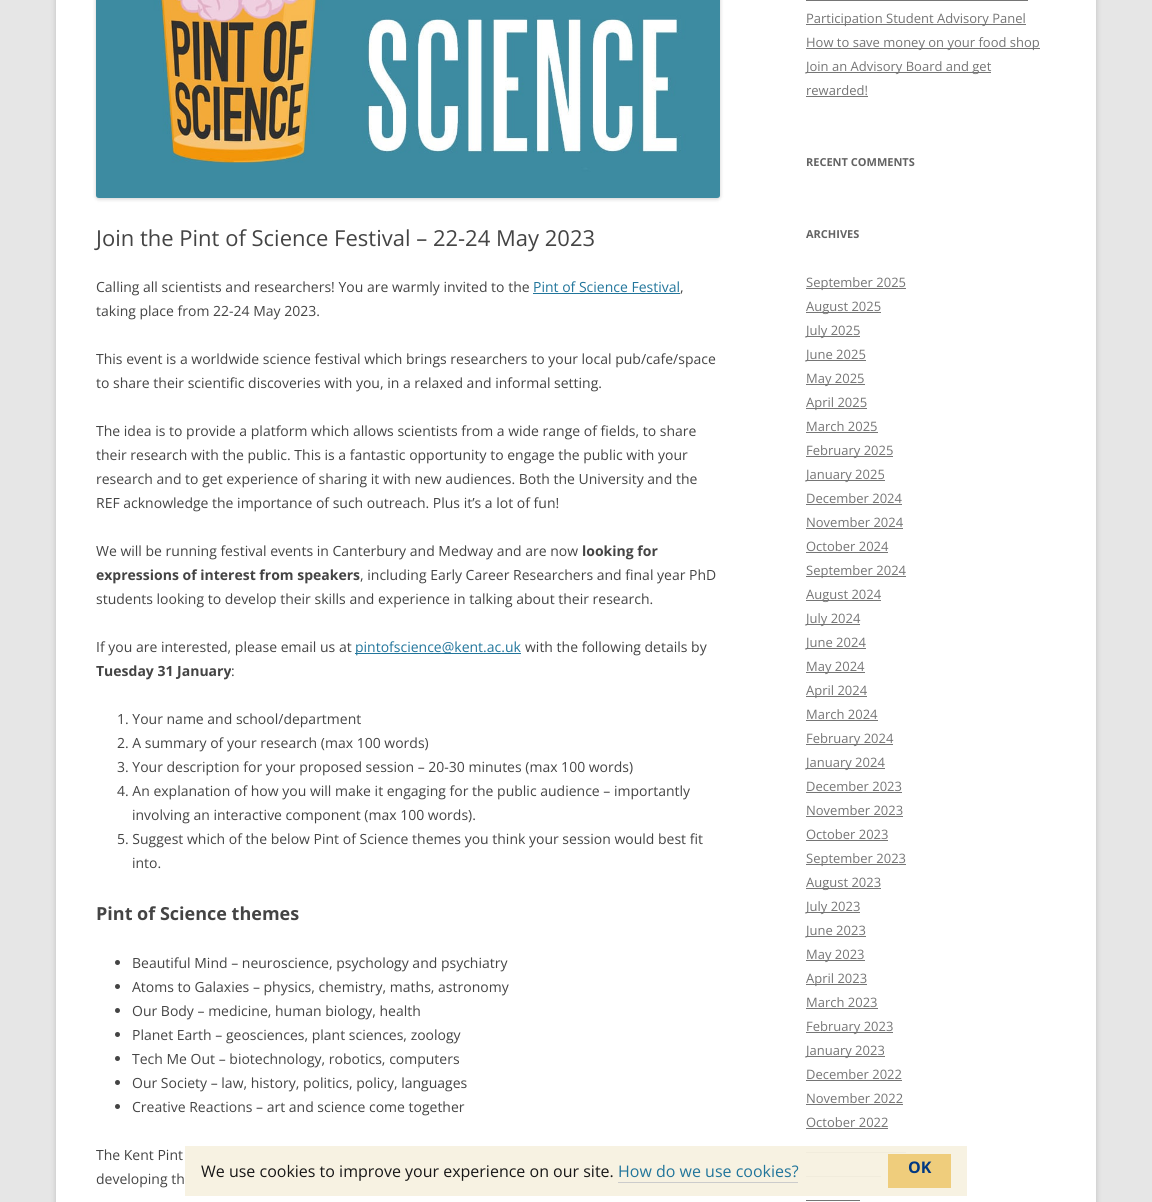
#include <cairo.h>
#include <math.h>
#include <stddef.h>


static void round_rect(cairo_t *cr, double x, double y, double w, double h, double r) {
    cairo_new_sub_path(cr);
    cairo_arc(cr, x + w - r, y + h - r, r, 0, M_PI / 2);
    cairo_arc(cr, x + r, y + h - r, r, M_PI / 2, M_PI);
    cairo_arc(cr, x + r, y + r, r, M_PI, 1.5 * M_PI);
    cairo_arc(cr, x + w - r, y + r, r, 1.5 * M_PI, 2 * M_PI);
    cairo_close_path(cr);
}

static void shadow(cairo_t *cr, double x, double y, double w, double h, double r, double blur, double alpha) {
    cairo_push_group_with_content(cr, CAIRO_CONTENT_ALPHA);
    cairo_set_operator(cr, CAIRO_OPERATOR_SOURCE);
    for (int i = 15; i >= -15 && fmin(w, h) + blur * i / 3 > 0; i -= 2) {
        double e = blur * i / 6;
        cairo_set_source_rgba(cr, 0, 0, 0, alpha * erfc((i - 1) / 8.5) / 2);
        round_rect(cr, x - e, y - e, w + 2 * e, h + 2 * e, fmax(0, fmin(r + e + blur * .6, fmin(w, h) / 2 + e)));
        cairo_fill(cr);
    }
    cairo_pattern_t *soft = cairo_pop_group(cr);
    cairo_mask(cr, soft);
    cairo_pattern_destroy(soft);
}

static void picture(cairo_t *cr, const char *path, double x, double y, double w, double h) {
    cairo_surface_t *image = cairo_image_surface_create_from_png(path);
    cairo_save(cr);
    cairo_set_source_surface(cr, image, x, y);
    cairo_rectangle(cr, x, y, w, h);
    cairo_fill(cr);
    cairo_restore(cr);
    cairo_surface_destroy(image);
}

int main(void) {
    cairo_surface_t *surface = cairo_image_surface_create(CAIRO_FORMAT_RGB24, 1152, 1202);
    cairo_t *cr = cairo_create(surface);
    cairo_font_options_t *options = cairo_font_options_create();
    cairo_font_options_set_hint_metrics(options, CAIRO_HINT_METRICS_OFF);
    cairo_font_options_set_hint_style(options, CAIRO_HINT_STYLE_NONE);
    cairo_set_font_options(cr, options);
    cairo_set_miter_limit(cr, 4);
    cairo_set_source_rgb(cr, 0.902, 0.902, 0.902);
    cairo_paint(cr);
    cairo_set_source_rgb(cr, 0.392, 0.392, 0.392);
    shadow(cr, 56, -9, 1040, 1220, 0, 3, 0.3);
    cairo_set_source_rgb(cr, 1, 1, 1);
    cairo_rectangle(cr, 56, 0, 1040, 1202);
    cairo_fill(cr);
    cairo_set_source_rgb(cr, 0, 0, 0);
    shadow(cr, 96, -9, 624, 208, 3, 2, 0.2);
    picture(cr, "img1.png", 96, 0, 624, 198);
    cairo_select_font_face(cr, "Open Sans", CAIRO_FONT_SLANT_NORMAL, CAIRO_FONT_WEIGHT_NORMAL);
    cairo_set_font_size(cr, 22);
    cairo_set_source_rgb(cr, 0.267, 0.267, 0.267);
    cairo_move_to(cr, 96, 246);
    cairo_show_text(cr, "Join the Pint of Science Festival – 22-24 May 2023");
    cairo_set_font_size(cr, 14);
    cairo_move_to(cr, 96, 292);
    cairo_show_text(cr, "Calling all scientists and researchers! You are warmly invited to the");
    cairo_set_source_rgb(cr, 0.129, 0.459, 0.608);
    cairo_move_to(cr, 533, 292);
    cairo_show_text(cr, "Pint of Science Festival");
    cairo_rectangle(cr, 533, 293, 147, 1);
    cairo_fill(cr);
    cairo_set_source_rgb(cr, 0.267, 0.267, 0.267);
    cairo_move_to(cr, 680, 292);
    cairo_show_text(cr, ",");
    cairo_move_to(cr, 96, 316);
    cairo_show_text(cr, "taking place from 22-24 May 2023.");
    cairo_move_to(cr, 96, 364);
    cairo_show_text(cr, "This event is a worldwide science festival which brings researchers to your local pub/cafe/space");
    cairo_move_to(cr, 96, 388);
    cairo_show_text(cr, "to share their scientific discoveries with you, in a relaxed and informal setting.");
    cairo_move_to(cr, 96, 436);
    cairo_show_text(cr, "The idea is to provide a platform which allows scientists from a wide range of fields, to share");
    cairo_move_to(cr, 96, 460);
    cairo_show_text(cr, "their research with the public. This is a fantastic opportunity to engage the public with your");
    cairo_move_to(cr, 96, 484);
    cairo_show_text(cr, "research and to get experience of sharing it with new audiences. Both the University and the");
    cairo_move_to(cr, 96, 508);
    cairo_show_text(cr, "REF acknowledge the importance of such outreach. Plus it’s a lot of fun!");
    cairo_move_to(cr, 96, 556);
    cairo_show_text(cr, "We will be running festival events in Canterbury and Medway and are now");
    cairo_select_font_face(cr, "Open Sans", CAIRO_FONT_SLANT_NORMAL, CAIRO_FONT_WEIGHT_BOLD);
    cairo_move_to(cr, 582, 556);
    cairo_show_text(cr, "looking for");
    cairo_move_to(cr, 96, 580);
    cairo_show_text(cr, "expressions of interest from speakers");
    cairo_select_font_face(cr, "Open Sans", CAIRO_FONT_SLANT_NORMAL, CAIRO_FONT_WEIGHT_NORMAL);
    cairo_move_to(cr, 360, 580);
    cairo_show_text(cr, ", including Early Career Researchers and final year PhD");
    cairo_move_to(cr, 96, 604);
    cairo_show_text(cr, "students looking to develop their skills and experience in talking about their research.");
    cairo_move_to(cr, 96, 652);
    cairo_show_text(cr, "If you are interested, please email us at");
    cairo_set_source_rgb(cr, 0.129, 0.459, 0.608);
    cairo_rectangle(cr, 355, 653, 166, 1);
    cairo_fill(cr);
    cairo_move_to(cr, 355, 652);
    cairo_show_text(cr, "pintofscience@kent.ac.uk");
    cairo_set_source_rgb(cr, 0.267, 0.267, 0.267);
    cairo_move_to(cr, 525, 652);
    cairo_show_text(cr, "with the following details by");
    cairo_select_font_face(cr, "Open Sans", CAIRO_FONT_SLANT_NORMAL, CAIRO_FONT_WEIGHT_BOLD);
    cairo_move_to(cr, 96, 676);
    cairo_show_text(cr, "Tuesday 31 January");
    cairo_select_font_face(cr, "Open Sans", CAIRO_FONT_SLANT_NORMAL, CAIRO_FONT_WEIGHT_NORMAL);
    cairo_move_to(cr, 231, 676);
    cairo_show_text(cr, ":");
    cairo_move_to(cr, 117, 724);
    cairo_show_text(cr, "1. Your name and school/department");
    cairo_move_to(cr, 117, 748);
    cairo_show_text(cr, "2. A summary of your research (max 100 words)");
    cairo_move_to(cr, 117, 772);
    cairo_show_text(cr, "3. Your description for your proposed session – 20-30 minutes (max 100 words)");
    cairo_move_to(cr, 117, 796);
    cairo_show_text(cr, "4. An explanation of how you will make it engaging for the public audience – importantly");
    cairo_move_to(cr, 132, 820);
    cairo_show_text(cr, "involving an interactive component (max 100 words).");
    cairo_move_to(cr, 117, 844);
    cairo_show_text(cr, "5. Suggest which of the below Pint of Science themes you think your session would best fit");
    cairo_move_to(cr, 132, 868);
    cairo_show_text(cr, "into.");
    cairo_select_font_face(cr, "Open Sans", CAIRO_FONT_SLANT_NORMAL, CAIRO_FONT_WEIGHT_BOLD);
    cairo_set_font_size(cr, 18);
    cairo_move_to(cr, 96, 920);
    cairo_show_text(cr, "Pint of Science themes");
    cairo_new_path(cr);
    cairo_arc(cr, 117.5, 962.5, 2.5, 0, 2 * M_PI);
    cairo_fill(cr);
    cairo_select_font_face(cr, "Open Sans", CAIRO_FONT_SLANT_NORMAL, CAIRO_FONT_WEIGHT_NORMAL);
    cairo_set_font_size(cr, 14);
    cairo_move_to(cr, 132, 968);
    cairo_show_text(cr, "Beautiful Mind – neuroscience, psychology and psychiatry");
    cairo_new_path(cr);
    cairo_arc(cr, 117.5, 986.5, 2.5, 0, 2 * M_PI);
    cairo_fill(cr);
    cairo_move_to(cr, 132, 992);
    cairo_show_text(cr, "Atoms to Galaxies – physics, chemistry, maths, astronomy");
    cairo_new_path(cr);
    cairo_arc(cr, 117.5, 1010.5, 2.5, 0, 2 * M_PI);
    cairo_fill(cr);
    cairo_move_to(cr, 132, 1016);
    cairo_show_text(cr, "Our Body – medicine, human biology, health");
    cairo_new_path(cr);
    cairo_arc(cr, 117.5, 1034.5, 2.5, 0, 2 * M_PI);
    cairo_fill(cr);
    cairo_move_to(cr, 132, 1040);
    cairo_show_text(cr, "Planet Earth – geosciences, plant sciences, zoology");
    cairo_new_path(cr);
    cairo_arc(cr, 117.5, 1058.5, 2.5, 0, 2 * M_PI);
    cairo_fill(cr);
    cairo_move_to(cr, 132, 1064);
    cairo_show_text(cr, "Tech Me Out – biotechnology, robotics, computers");
    cairo_new_path(cr);
    cairo_arc(cr, 117.5, 1082.5, 2.5, 0, 2 * M_PI);
    cairo_fill(cr);
    cairo_move_to(cr, 132, 1088);
    cairo_show_text(cr, "Our Society – law, history, politics, policy, languages");
    cairo_new_path(cr);
    cairo_arc(cr, 117.5, 1106.5, 2.5, 0, 2 * M_PI);
    cairo_fill(cr);
    cairo_move_to(cr, 132, 1112);
    cairo_show_text(cr, "Creative Reactions – art and science come together");
    cairo_move_to(cr, 96, 1160);
    cairo_show_text(cr, "The Kent Pint");
    cairo_move_to(cr, 96, 1184);
    cairo_show_text(cr, "developing th");
    cairo_set_source_rgb(cr, 0.459, 0.459, 0.459);
    cairo_rectangle(cr, 806, 24, 220, 1);
    cairo_fill(cr);
    cairo_set_font_size(cr, 13);
    cairo_move_to(cr, 806, 23);
    cairo_show_text(cr, "Participation Student Advisory Panel");
    cairo_rectangle(cr, 806, 0, 222, 1);
    cairo_fill(cr);
    cairo_rectangle(cr, 806, 48, 234, 1);
    cairo_fill(cr);
    cairo_move_to(cr, 806, 47);
    cairo_show_text(cr, "How to save money on your food shop");
    cairo_rectangle(cr, 806, 72, 185, 1);
    cairo_fill(cr);
    cairo_move_to(cr, 806, 71);
    cairo_show_text(cr, "Join an Advisory Board and get");
    cairo_move_to(cr, 806, 95);
    cairo_show_text(cr, "rewarded!");
    cairo_rectangle(cr, 806, 96, 62, 1);
    cairo_fill(cr);
    cairo_select_font_face(cr, "Open Sans", CAIRO_FONT_SLANT_NORMAL, CAIRO_FONT_WEIGHT_BOLD);
    cairo_set_font_size(cr, 11);
    cairo_set_source_rgb(cr, 0.388, 0.388, 0.388);
    cairo_move_to(cr, 806, 166);
    cairo_show_text(cr, "RECENT COMMENTS");
    cairo_move_to(cr, 806, 238);
    cairo_show_text(cr, "ARCHIVES");
    cairo_set_source_rgb(cr, 0.459, 0.459, 0.459);
    cairo_rectangle(cr, 806, 288, 100, 1);
    cairo_fill(cr);
    cairo_select_font_face(cr, "Open Sans", CAIRO_FONT_SLANT_NORMAL, CAIRO_FONT_WEIGHT_NORMAL);
    cairo_set_font_size(cr, 13);
    cairo_move_to(cr, 806, 287);
    cairo_show_text(cr, "September 2025");
    cairo_rectangle(cr, 806, 312, 75, 1);
    cairo_fill(cr);
    cairo_move_to(cr, 806, 311);
    cairo_show_text(cr, "August 2025");
    cairo_rectangle(cr, 806, 336, 54, 1);
    cairo_fill(cr);
    cairo_move_to(cr, 806, 335);
    cairo_show_text(cr, "July 2025");
    cairo_rectangle(cr, 806, 360, 60, 1);
    cairo_fill(cr);
    cairo_move_to(cr, 806, 359);
    cairo_show_text(cr, "June 2025");
    cairo_rectangle(cr, 806, 384, 59, 1);
    cairo_fill(cr);
    cairo_move_to(cr, 806, 383);
    cairo_show_text(cr, "May 2025");
    cairo_rectangle(cr, 806, 408, 61, 1);
    cairo_fill(cr);
    cairo_move_to(cr, 806, 407);
    cairo_show_text(cr, "April 2025");
    cairo_move_to(cr, 806, 431);
    cairo_show_text(cr, "March 2025");
    cairo_rectangle(cr, 806, 432, 72, 1);
    cairo_fill(cr);
    cairo_rectangle(cr, 806, 456, 87, 1);
    cairo_fill(cr);
    cairo_move_to(cr, 806, 455);
    cairo_show_text(cr, "February 2025");
    cairo_rectangle(cr, 806, 480, 79, 1);
    cairo_fill(cr);
    cairo_move_to(cr, 806, 479);
    cairo_show_text(cr, "January 2025");
    cairo_move_to(cr, 806, 503);
    cairo_show_text(cr, "December 2024");
    cairo_rectangle(cr, 806, 504, 96, 1);
    cairo_fill(cr);
    cairo_move_to(cr, 806, 527);
    cairo_show_text(cr, "November 2024");
    cairo_rectangle(cr, 806, 528, 97, 1);
    cairo_fill(cr);
    cairo_move_to(cr, 806, 551);
    cairo_show_text(cr, "October 2024");
    cairo_rectangle(cr, 806, 552, 82, 1);
    cairo_fill(cr);
    cairo_rectangle(cr, 806, 576, 100, 1);
    cairo_fill(cr);
    cairo_move_to(cr, 806, 575);
    cairo_show_text(cr, "September 2024");
    cairo_rectangle(cr, 806, 600, 75, 1);
    cairo_fill(cr);
    cairo_move_to(cr, 806, 599);
    cairo_show_text(cr, "August 2024");
    cairo_rectangle(cr, 806, 624, 54, 1);
    cairo_fill(cr);
    cairo_move_to(cr, 806, 623);
    cairo_show_text(cr, "July 2024");
    cairo_rectangle(cr, 806, 648, 60, 1);
    cairo_fill(cr);
    cairo_move_to(cr, 806, 647);
    cairo_show_text(cr, "June 2024");
    cairo_rectangle(cr, 806, 672, 59, 1);
    cairo_fill(cr);
    cairo_move_to(cr, 806, 671);
    cairo_show_text(cr, "May 2024");
    cairo_rectangle(cr, 806, 696, 61, 1);
    cairo_fill(cr);
    cairo_move_to(cr, 806, 695);
    cairo_show_text(cr, "April 2024");
    cairo_move_to(cr, 806, 719);
    cairo_show_text(cr, "March 2024");
    cairo_rectangle(cr, 806, 720, 72, 1);
    cairo_fill(cr);
    cairo_rectangle(cr, 806, 744, 87, 1);
    cairo_fill(cr);
    cairo_move_to(cr, 806, 743);
    cairo_show_text(cr, "February 2024");
    cairo_rectangle(cr, 806, 768, 79, 1);
    cairo_fill(cr);
    cairo_move_to(cr, 806, 767);
    cairo_show_text(cr, "January 2024");
    cairo_move_to(cr, 806, 791);
    cairo_show_text(cr, "December 2023");
    cairo_rectangle(cr, 806, 792, 96, 1);
    cairo_fill(cr);
    cairo_move_to(cr, 806, 815);
    cairo_show_text(cr, "November 2023");
    cairo_rectangle(cr, 806, 816, 97, 1);
    cairo_fill(cr);
    cairo_move_to(cr, 806, 839);
    cairo_show_text(cr, "October 2023");
    cairo_rectangle(cr, 806, 840, 82, 1);
    cairo_fill(cr);
    cairo_rectangle(cr, 806, 864, 100, 1);
    cairo_fill(cr);
    cairo_move_to(cr, 806, 863);
    cairo_show_text(cr, "September 2023");
    cairo_rectangle(cr, 806, 888, 75, 1);
    cairo_fill(cr);
    cairo_move_to(cr, 806, 887);
    cairo_show_text(cr, "August 2023");
    cairo_rectangle(cr, 806, 912, 54, 1);
    cairo_fill(cr);
    cairo_move_to(cr, 806, 911);
    cairo_show_text(cr, "July 2023");
    cairo_rectangle(cr, 806, 936, 60, 1);
    cairo_fill(cr);
    cairo_move_to(cr, 806, 935);
    cairo_show_text(cr, "June 2023");
    cairo_rectangle(cr, 806, 960, 59, 1);
    cairo_fill(cr);
    cairo_move_to(cr, 806, 959);
    cairo_show_text(cr, "May 2023");
    cairo_rectangle(cr, 806, 984, 61, 1);
    cairo_fill(cr);
    cairo_move_to(cr, 806, 983);
    cairo_show_text(cr, "April 2023");
    cairo_move_to(cr, 806, 1007);
    cairo_show_text(cr, "March 2023");
    cairo_rectangle(cr, 806, 1008, 72, 1);
    cairo_fill(cr);
    cairo_rectangle(cr, 806, 1032, 87, 1);
    cairo_fill(cr);
    cairo_move_to(cr, 806, 1031);
    cairo_show_text(cr, "February 2023");
    cairo_rectangle(cr, 806, 1056, 79, 1);
    cairo_fill(cr);
    cairo_move_to(cr, 806, 1055);
    cairo_show_text(cr, "January 2023");
    cairo_move_to(cr, 806, 1079);
    cairo_show_text(cr, "December 2022");
    cairo_rectangle(cr, 806, 1080, 96, 1);
    cairo_fill(cr);
    cairo_move_to(cr, 806, 1103);
    cairo_show_text(cr, "November 2022");
    cairo_rectangle(cr, 806, 1104, 97, 1);
    cairo_fill(cr);
    cairo_move_to(cr, 806, 1127);
    cairo_show_text(cr, "October 2022");
    cairo_rectangle(cr, 806, 1128, 82, 1);
    cairo_fill(cr);
    cairo_rectangle(cr, 806, 1152, 100, 1);
    cairo_fill(cr);
    cairo_rectangle(cr, 806, 1176, 75, 1);
    cairo_fill(cr);
    cairo_rectangle(cr, 806, 1200, 54, 1);
    cairo_fill(cr);
    cairo_set_source_rgba(cr, 0.969, 0.949, 0.882, 0.95);
    cairo_rectangle(cr, 185, 1146, 782, 50);
    cairo_fill(cr);
    cairo_set_font_size(cr, 16);
    cairo_set_source_rgb(cr, 0.09, 0.09, 0.09);
    cairo_move_to(cr, 201, 1177);
    cairo_show_text(cr, "We use cookies to improve your experience on our site.");
    cairo_set_source_rgb(cr, 0.129, 0.459, 0.608);
    cairo_move_to(cr, 618, 1177);
    cairo_show_text(cr, "How do we use cookies?");
    cairo_set_source_rgb(cr, 0.8, 0.8, 0.8);
    cairo_rectangle(cr, 618, 1182, 180, 1);
    cairo_fill(cr);
    cairo_set_source_rgb(cr, 0.937, 0.804, 0.486);
    cairo_rectangle(cr, 888, 1154, 63, 34);
    cairo_fill(cr);
    cairo_select_font_face(cr, "Open Sans", CAIRO_FONT_SLANT_NORMAL, CAIRO_FONT_WEIGHT_BOLD);
    cairo_set_source_rgb(cr, 0, 0.22, 0.51);
    cairo_move_to(cr, 908, 1173);
    cairo_show_text(cr, "OK");
    cairo_surface_write_to_png(surface, "page.png");
    cairo_font_options_destroy(options);
    cairo_destroy(cr);
    cairo_surface_destroy(surface);
    return 0;
}
